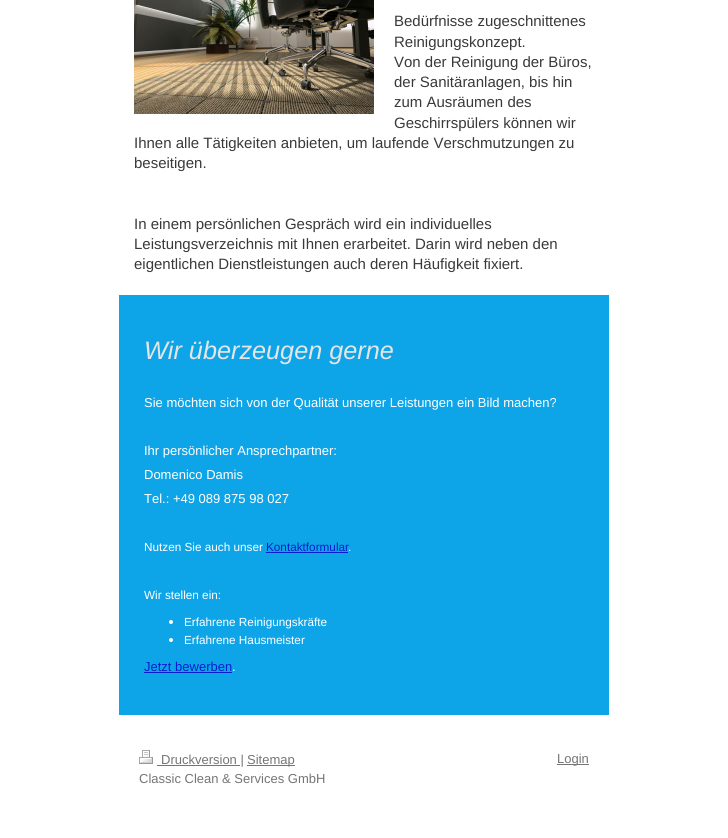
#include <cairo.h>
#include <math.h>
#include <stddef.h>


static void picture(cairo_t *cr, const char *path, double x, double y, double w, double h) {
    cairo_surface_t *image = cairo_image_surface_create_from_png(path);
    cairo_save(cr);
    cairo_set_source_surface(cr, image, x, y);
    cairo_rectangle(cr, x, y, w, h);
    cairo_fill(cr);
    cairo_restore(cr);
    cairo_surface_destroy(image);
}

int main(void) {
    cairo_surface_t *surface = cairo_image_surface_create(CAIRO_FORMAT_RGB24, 728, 838);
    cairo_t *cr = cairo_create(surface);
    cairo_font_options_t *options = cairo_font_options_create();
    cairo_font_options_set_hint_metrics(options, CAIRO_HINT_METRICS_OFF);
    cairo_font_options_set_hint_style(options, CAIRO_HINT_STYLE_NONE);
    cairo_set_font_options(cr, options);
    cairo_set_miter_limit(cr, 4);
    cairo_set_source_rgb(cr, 1, 1, 1);
    cairo_paint(cr);
    picture(cr, "img1.png", 134, 0, 240, 114);
    cairo_select_font_face(cr, "Liberation Sans", CAIRO_FONT_SLANT_NORMAL, CAIRO_FONT_WEIGHT_NORMAL);
    cairo_set_font_size(cr, 15);
    cairo_set_source_rgb(cr, 0.224, 0.224, 0.224);
    cairo_move_to(cr, 394, 26);
    cairo_show_text(cr, "Bedürfnisse zugeschnittenes");
    cairo_move_to(cr, 394, 47);
    cairo_show_text(cr, "Reinigungskonzept.");
    cairo_move_to(cr, 394, 67);
    cairo_show_text(cr, "Von der Reinigung der Büros,");
    cairo_move_to(cr, 394, 87);
    cairo_show_text(cr, "der Sanitäranlagen, bis hin");
    cairo_move_to(cr, 394, 107);
    cairo_show_text(cr, "zum Ausräumen des");
    cairo_move_to(cr, 394, 128);
    cairo_show_text(cr, "Geschirrspülers können wir");
    cairo_move_to(cr, 134, 148);
    cairo_show_text(cr, "Ihnen alle Tätigkeiten anbieten, um laufende Verschmutzungen zu");
    cairo_move_to(cr, 134, 168);
    cairo_show_text(cr, "beseitigen.");
    cairo_move_to(cr, 134, 229);
    cairo_show_text(cr, "In einem persönlichen Gespräch wird ein individuelles");
    cairo_move_to(cr, 134, 249);
    cairo_show_text(cr, "Leistungsverzeichnis mit Ihnen erarbeitet. Darin wird neben den");
    cairo_move_to(cr, 134, 269);
    cairo_show_text(cr, "eigentlichen Dienstleistungen auch deren Häufigkeit fixiert.");
    cairo_set_source_rgb(cr, 0.055, 0.647, 0.91);
    cairo_rectangle(cr, 119, 295, 490, 420);
    cairo_fill(cr);
    cairo_select_font_face(cr, "Liberation Sans", CAIRO_FONT_SLANT_ITALIC, CAIRO_FONT_WEIGHT_NORMAL);
    cairo_set_font_size(cr, 25.25);
    cairo_set_source_rgb(cr, 0.898, 0.898, 0.898);
    cairo_move_to(cr, 144, 359);
    cairo_show_text(cr, "Wir überzeugen gerne");
    cairo_select_font_face(cr, "Liberation Sans", CAIRO_FONT_SLANT_NORMAL, CAIRO_FONT_WEIGHT_NORMAL);
    cairo_set_font_size(cr, 13);
    cairo_set_source_rgb(cr, 1, 1, 1);
    cairo_move_to(cr, 144, 407);
    cairo_show_text(cr, "Sie möchten sich von der Qualität unserer Leistungen ein Bild machen?");
    cairo_move_to(cr, 144, 455);
    cairo_show_text(cr, "Ihr persönlicher Ansprechpartner:");
    cairo_move_to(cr, 144, 479);
    cairo_show_text(cr, "Domenico Damis");
    cairo_move_to(cr, 144, 503);
    cairo_show_text(cr, "Tel.: +49 089 875 98 027");
    cairo_set_font_size(cr, 11.75);
    cairo_move_to(cr, 144, 551);
    cairo_show_text(cr, "Nutzen Sie auch unser");
    cairo_set_source_rgb(cr, 0.024, 0.118, 0.816);
    cairo_move_to(cr, 266, 551);
    cairo_show_text(cr, "Kontaktformular");
    cairo_rectangle(cr, 266, 552, 82, 1);
    cairo_fill(cr);
    cairo_set_source_rgb(cr, 1, 1, 1);
    cairo_move_to(cr, 348, 551);
    cairo_show_text(cr, ".");
    cairo_move_to(cr, 144, 599);
    cairo_show_text(cr, "Wir stellen ein:");
    cairo_new_path(cr);
    cairo_arc(cr, 171, 622, 2, 0, 2 * M_PI);
    cairo_fill(cr);
    cairo_move_to(cr, 184, 626);
    cairo_show_text(cr, "Erfahrene Reinigungskräfte");
    cairo_new_path(cr);
    cairo_arc(cr, 171, 640, 2, 0, 2 * M_PI);
    cairo_fill(cr);
    cairo_move_to(cr, 184, 644);
    cairo_show_text(cr, "Erfahrene Hausmeister");
    cairo_set_font_size(cr, 13);
    cairo_set_source_rgb(cr, 0.024, 0.118, 0.816);
    cairo_move_to(cr, 144, 671);
    cairo_show_text(cr, "Jetzt bewerben");
    cairo_rectangle(cr, 144, 672, 88, 1);
    cairo_fill(cr);
    cairo_set_source_rgb(cr, 1, 1, 1);
    cairo_move_to(cr, 232, 671);
    cairo_show_text(cr, ".");
    picture(cr, "img2.png", 139, 750, 14, 14);
    cairo_set_source_rgb(cr, 0.459, 0.459, 0.459);
    cairo_rectangle(cr, 157, 765, 83, 1);
    cairo_fill(cr);
    cairo_move_to(cr, 161, 764);
    cairo_show_text(cr, "Druckversion |");
    cairo_rectangle(cr, 247, 765, 48, 1);
    cairo_fill(cr);
    cairo_move_to(cr, 247, 764);
    cairo_show_text(cr, "Sitemap");
    cairo_move_to(cr, 139, 783);
    cairo_show_text(cr, "Classic Clean & Services GmbH");
    cairo_rectangle(cr, 557, 764, 32, 1);
    cairo_fill(cr);
    cairo_move_to(cr, 557, 763);
    cairo_show_text(cr, "Login");
    cairo_surface_write_to_png(surface, "page.png");
    cairo_font_options_destroy(options);
    cairo_destroy(cr);
    cairo_surface_destroy(surface);
    return 0;
}
